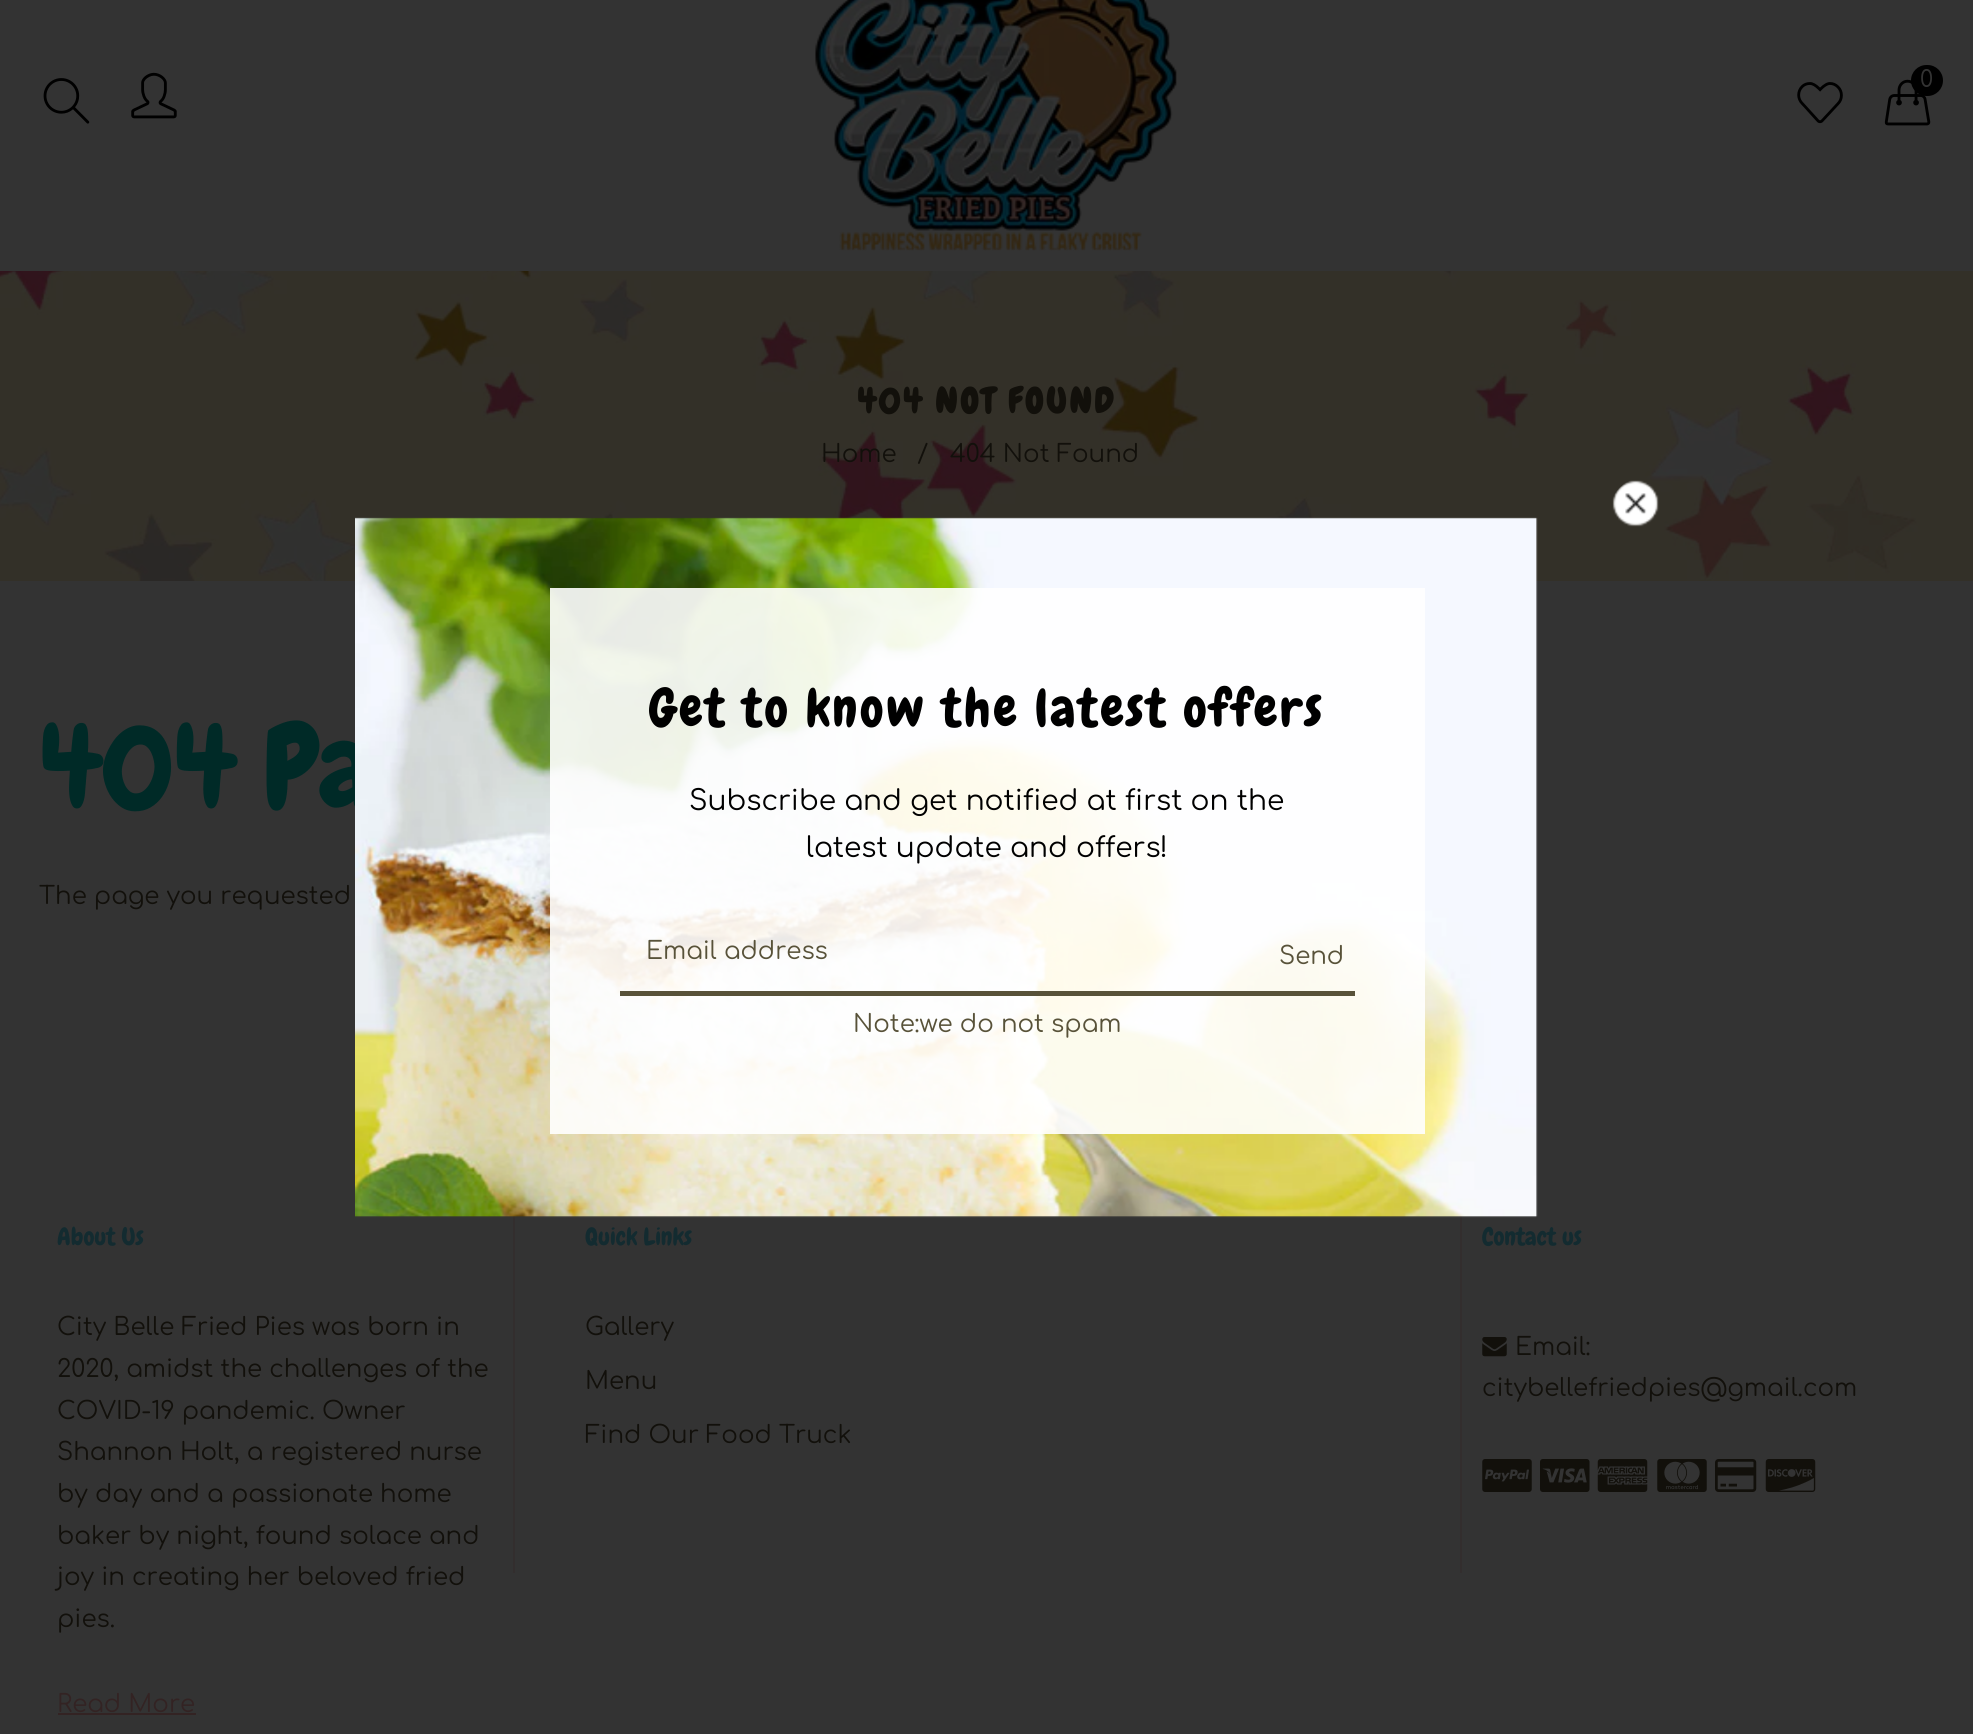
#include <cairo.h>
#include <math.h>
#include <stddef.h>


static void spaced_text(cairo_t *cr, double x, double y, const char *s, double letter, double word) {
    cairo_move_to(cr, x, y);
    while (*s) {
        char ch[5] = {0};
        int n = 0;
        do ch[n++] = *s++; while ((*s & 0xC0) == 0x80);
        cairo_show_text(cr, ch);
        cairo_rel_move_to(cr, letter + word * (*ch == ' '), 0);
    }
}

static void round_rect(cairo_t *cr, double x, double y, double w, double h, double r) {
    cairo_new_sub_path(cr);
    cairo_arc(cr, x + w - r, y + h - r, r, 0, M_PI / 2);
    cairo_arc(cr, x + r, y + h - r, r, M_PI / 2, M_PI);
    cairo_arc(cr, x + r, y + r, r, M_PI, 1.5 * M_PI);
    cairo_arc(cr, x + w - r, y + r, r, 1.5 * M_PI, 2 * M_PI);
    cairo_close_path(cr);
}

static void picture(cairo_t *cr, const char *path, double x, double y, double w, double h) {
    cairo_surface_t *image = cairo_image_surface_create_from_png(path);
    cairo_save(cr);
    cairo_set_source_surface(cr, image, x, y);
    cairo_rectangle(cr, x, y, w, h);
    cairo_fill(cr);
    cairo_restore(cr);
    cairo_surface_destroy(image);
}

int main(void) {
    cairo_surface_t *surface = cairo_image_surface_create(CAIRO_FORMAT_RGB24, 1973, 1734);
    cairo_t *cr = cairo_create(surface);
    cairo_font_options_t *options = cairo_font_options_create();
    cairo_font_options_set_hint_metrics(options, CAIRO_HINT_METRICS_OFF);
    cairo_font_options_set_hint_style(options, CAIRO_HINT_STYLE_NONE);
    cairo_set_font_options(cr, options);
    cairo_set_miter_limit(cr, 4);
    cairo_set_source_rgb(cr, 0.2, 0.2, 0.2);
    cairo_paint(cr);
    picture(cr, "img1.png", 43, 78, 47, 46);
    picture(cr, "img2.png", 131, 72, 46, 47);
    picture(cr, "img3.png", 815, 0, 362, 251);
    picture(cr, "img4.png", 1884, 79, 47, 47);
    cairo_set_source_rgb(cr, 0, 0, 0);
    round_rect(cr, 1911, 65, 32, 31, 15.5);
    cairo_fill(cr);
    cairo_select_font_face(cr, "Comfortaa", CAIRO_FONT_SLANT_NORMAL, CAIRO_FONT_WEIGHT_NORMAL);
    cairo_set_font_size(cr, 23);
    cairo_set_source_rgb(cr, 0.2, 0.2, 0.2);
    cairo_move_to(cr, 1920, 87);
    cairo_show_text(cr, "0");
    picture(cr, "img5.png", 1797, 82, 46, 42);
    picture(cr, "img6.png", 0, 271, 1973, 310);
    cairo_select_font_face(cr, "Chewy", CAIRO_FONT_SLANT_NORMAL, CAIRO_FONT_WEIGHT_BOLD);
    cairo_set_font_size(cr, 35);
    cairo_set_source_rgb(cr, 0.071, 0.063, 0.043);
    spaced_text(cr, 857, 413, "404 NOT FOUND", 2.75, 0);
    cairo_select_font_face(cr, "Comfortaa", CAIRO_FONT_SLANT_NORMAL, CAIRO_FONT_WEIGHT_NORMAL);
    cairo_set_font_size(cr, 24.5);
    cairo_move_to(cr, 821, 462);
    cairo_show_text(cr, "Home");
    cairo_move_to(cr, 917, 462);
    cairo_show_text(cr, "/");
    cairo_move_to(cr, 950, 462);
    cairo_show_text(cr, "404 Not Found");
    cairo_select_font_face(cr, "Chewy", CAIRO_FONT_SLANT_NORMAL, CAIRO_FONT_WEIGHT_NORMAL);
    cairo_set_font_size(cr, 117);
    cairo_set_source_rgb(cr, 0, 0.165, 0.153);
    cairo_move_to(cr, 39, 807);
    cairo_show_text(cr, "404 Pa");
    cairo_select_font_face(cr, "Comfortaa", CAIRO_FONT_SLANT_NORMAL, CAIRO_FONT_WEIGHT_NORMAL);
    cairo_set_font_size(cr, 24.5);
    cairo_set_source_rgb(cr, 0.071, 0.063, 0.043);
    cairo_move_to(cr, 39, 904);
    cairo_show_text(cr, "The page you requested");
    cairo_set_source_rgb(cr, 0.2, 0.18, 0.18);
    cairo_rectangle(cr, 1460, 1216, 2, 357);
    cairo_fill(cr);
    cairo_rectangle(cr, 513, 1216, 2, 357);
    cairo_fill(cr);
    picture(cr, "img7.png", 355, 517, 1183, 701);
    picture(cr, "img8.png", 1612, 480, 47, 47);
    cairo_set_source_rgba(cr, 1, 1, 1, 0.9);
    cairo_rectangle(cr, 550, 588, 875, 546);
    cairo_fill(cr);
    cairo_select_font_face(cr, "Chewy", CAIRO_FONT_SLANT_NORMAL, CAIRO_FONT_WEIGHT_NORMAL);
    cairo_set_font_size(cr, 52.5);
    cairo_set_source_rgb(cr, 0, 0, 0);
    spaced_text(cr, 649, 726, "Get to know the latest offers", 2.6, 0);
    cairo_select_font_face(cr, "Comfortaa", CAIRO_FONT_SLANT_NORMAL, CAIRO_FONT_WEIGHT_NORMAL);
    cairo_set_font_size(cr, 28);
    cairo_move_to(cr, 689, 810);
    cairo_show_text(cr, "Subscribe and get notified at first on the");
    cairo_move_to(cr, 806, 857);
    cairo_show_text(cr, "latest update and offers!");
    cairo_set_source_rgb(cr, 0.345, 0.322, 0.224);
    cairo_rectangle(cr, 620, 991, 735, 5);
    cairo_fill(cr);
    cairo_set_font_size(cr, 24.5);
    cairo_move_to(cr, 646, 959);
    cairo_show_text(cr, "Email address");
    cairo_move_to(cr, 1279, 964);
    cairo_show_text(cr, "Send");
    cairo_move_to(cr, 853, 1032);
    cairo_show_text(cr, "Note:we do not spam");
    cairo_select_font_face(cr, "Chewy", CAIRO_FONT_SLANT_NORMAL, CAIRO_FONT_WEIGHT_NORMAL);
    cairo_set_source_rgb(cr, 0.078, 0.169, 0.188);
    cairo_move_to(cr, 57, 1245);
    cairo_show_text(cr, "About Us");
    cairo_select_font_face(cr, "Comfortaa", CAIRO_FONT_SLANT_NORMAL, CAIRO_FONT_WEIGHT_NORMAL);
    cairo_set_source_rgb(cr, 0.071, 0.063, 0.043);
    cairo_move_to(cr, 57, 1335);
    cairo_show_text(cr, "City Belle Fried Pies was born in");
    cairo_move_to(cr, 57, 1377);
    cairo_show_text(cr, "2020, amidst the challenges of the");
    cairo_move_to(cr, 57, 1419);
    cairo_show_text(cr, "COVID-19 pandemic. Owner");
    cairo_move_to(cr, 57, 1460);
    cairo_show_text(cr, "Shannon Holt, a registered nurse");
    cairo_move_to(cr, 57, 1502);
    cairo_show_text(cr, "by day and a passionate home");
    cairo_move_to(cr, 57, 1544);
    cairo_show_text(cr, "baker by night, found solace and");
    cairo_move_to(cr, 57, 1585);
    cairo_show_text(cr, "joy in creating her beloved fried");
    cairo_move_to(cr, 57, 1627);
    cairo_show_text(cr, "pies.");
    cairo_set_source_rgb(cr, 0.2, 0.137, 0.137);
    cairo_move_to(cr, 57, 1712);
    cairo_show_text(cr, "Read More");
    cairo_rectangle(cr, 58, 1713, 138, 2);
    cairo_fill(cr);
    cairo_select_font_face(cr, "Chewy", CAIRO_FONT_SLANT_NORMAL, CAIRO_FONT_WEIGHT_NORMAL);
    cairo_set_source_rgb(cr, 0.078, 0.169, 0.188);
    cairo_move_to(cr, 585, 1245);
    cairo_show_text(cr, "Quick Links");
    cairo_select_font_face(cr, "Comfortaa", CAIRO_FONT_SLANT_NORMAL, CAIRO_FONT_WEIGHT_NORMAL);
    cairo_set_source_rgb(cr, 0.071, 0.063, 0.043);
    cairo_move_to(cr, 585, 1335);
    cairo_show_text(cr, "Gallery");
    cairo_move_to(cr, 585, 1389);
    cairo_show_text(cr, "Menu");
    cairo_move_to(cr, 585, 1443);
    cairo_show_text(cr, "Find Our Food Truck");
    cairo_select_font_face(cr, "Chewy", CAIRO_FONT_SLANT_NORMAL, CAIRO_FONT_WEIGHT_NORMAL);
    cairo_set_source_rgb(cr, 0.078, 0.169, 0.188);
    cairo_move_to(cr, 1482, 1245);
    cairo_show_text(cr, "Contact us");
    picture(cr, "img9.png", 1482, 1337, 25, 20);
    cairo_select_font_face(cr, "Comfortaa", CAIRO_FONT_SLANT_NORMAL, CAIRO_FONT_WEIGHT_NORMAL);
    cairo_set_source_rgb(cr, 0.071, 0.063, 0.043);
    cairo_move_to(cr, 1515, 1355);
    cairo_show_text(cr, "Email:");
    cairo_move_to(cr, 1482, 1396);
    cairo_show_text(cr, "citybellefriedpies@gmail.com");
    picture(cr, "img10.png", 1482, 1459, 50, 33);
    picture(cr, "img11.png", 1540, 1459, 50, 33);
    picture(cr, "img12.png", 1597, 1459, 51, 33);
    picture(cr, "img13.png", 1657, 1459, 50, 33);
    picture(cr, "img14.png", 1715, 1459, 42, 33);
    picture(cr, "img15.png", 1765, 1459, 51, 33);
    cairo_surface_write_to_png(surface, "page.png");
    cairo_font_options_destroy(options);
    cairo_destroy(cr);
    cairo_surface_destroy(surface);
    return 0;
}
